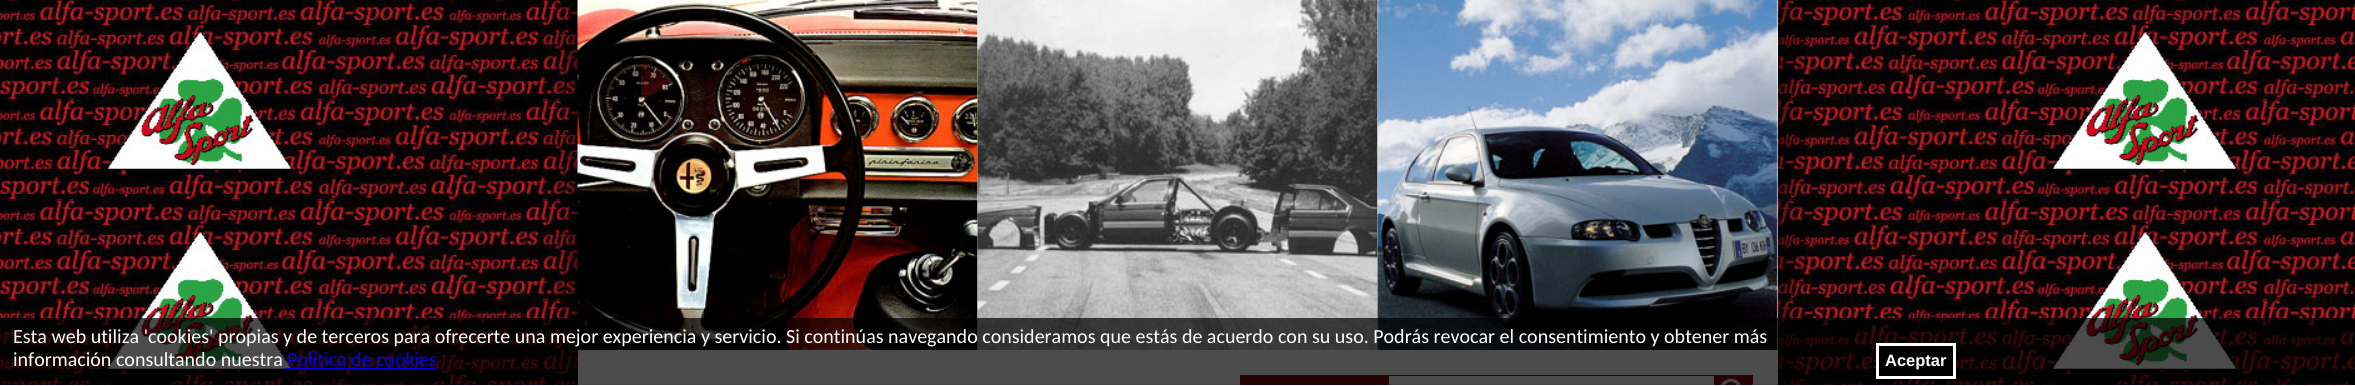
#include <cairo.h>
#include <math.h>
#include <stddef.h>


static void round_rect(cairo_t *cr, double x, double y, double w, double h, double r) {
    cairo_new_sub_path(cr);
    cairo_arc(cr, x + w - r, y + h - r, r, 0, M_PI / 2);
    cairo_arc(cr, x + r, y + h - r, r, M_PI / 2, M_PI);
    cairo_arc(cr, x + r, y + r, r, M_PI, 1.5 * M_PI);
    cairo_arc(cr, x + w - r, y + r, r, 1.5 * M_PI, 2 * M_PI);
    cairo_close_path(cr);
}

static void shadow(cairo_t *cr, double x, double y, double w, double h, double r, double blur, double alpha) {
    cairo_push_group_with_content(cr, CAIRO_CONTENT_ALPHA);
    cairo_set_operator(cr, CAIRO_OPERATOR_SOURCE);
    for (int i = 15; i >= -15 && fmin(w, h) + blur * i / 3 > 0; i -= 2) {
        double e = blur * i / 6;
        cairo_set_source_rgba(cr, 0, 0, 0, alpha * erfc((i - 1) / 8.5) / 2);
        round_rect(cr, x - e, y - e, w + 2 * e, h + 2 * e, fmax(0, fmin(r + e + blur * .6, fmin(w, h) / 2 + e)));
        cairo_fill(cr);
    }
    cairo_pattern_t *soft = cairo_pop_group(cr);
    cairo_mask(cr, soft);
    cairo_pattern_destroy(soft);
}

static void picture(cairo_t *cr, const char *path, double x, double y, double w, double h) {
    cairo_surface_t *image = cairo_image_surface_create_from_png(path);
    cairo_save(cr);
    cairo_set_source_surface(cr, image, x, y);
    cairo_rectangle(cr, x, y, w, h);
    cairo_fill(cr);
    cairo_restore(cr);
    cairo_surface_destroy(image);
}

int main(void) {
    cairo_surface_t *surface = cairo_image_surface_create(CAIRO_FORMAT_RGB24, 2355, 386);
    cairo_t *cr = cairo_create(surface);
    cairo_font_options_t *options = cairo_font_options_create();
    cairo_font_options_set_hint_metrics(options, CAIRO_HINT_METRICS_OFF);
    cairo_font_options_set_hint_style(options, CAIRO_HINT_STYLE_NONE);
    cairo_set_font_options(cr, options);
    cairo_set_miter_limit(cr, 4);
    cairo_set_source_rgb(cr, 1, 1, 1);
    cairo_paint(cr);
    picture(cr, "img1.png", 0, 0, 2355, 385);
    cairo_set_source_rgb(cr, 0, 0, 0);
    shadow(cr, 578, 0, 1200, 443, 0, 19, 1);
    cairo_set_source_rgb(cr, 1, 1, 1);
    cairo_rectangle(cr, 578, 0, 1200, 385);
    cairo_fill(cr);
    picture(cr, "img2.png", 577, 0, 401, 350);
    picture(cr, "img3.png", 977, 0, 401, 350);
    picture(cr, "img4.png", 1377, 0, 401, 350);
    cairo_set_source_rgb(cr, 0.486, 0.055, 0.047);
    cairo_rectangle(cr, 1240, 375, 148, 10);
    cairo_fill(cr);
    cairo_rectangle(cr, 1388.5, 375.5, 326, 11);
    cairo_set_line_width(cr, 1);
    cairo_stroke(cr);
    cairo_rectangle(cr, 1715, 375, 38, 10);
    cairo_fill(cr);
    picture(cr, "img5.png", 1720, 378, 22, 7);
    cairo_set_source_rgba(cr, 0, 0, 0, 0.7);
    cairo_rectangle(cr, 0, 318, 2355, 67);
    cairo_fill(cr);
    cairo_set_source_rgb(cr, 1, 1, 1);
    cairo_rectangle(cr, 534, 385, 1288, 1);
    cairo_fill(cr);
    cairo_select_font_face(cr, "Carlito", CAIRO_FONT_SLANT_NORMAL, CAIRO_FONT_WEIGHT_NORMAL);
    cairo_set_font_size(cr, 20);
    cairo_move_to(cr, 13, 343);
    cairo_show_text(cr, "Esta web utiliza 'cookies' propias y de terceros para ofrecerte una mejor experiencia y servicio. Si continúas navegando consideramos que estás de acuerdo con su uso. Podrás revocar el consentimiento y obtener más");
    cairo_move_to(cr, 13, 366);
    cairo_show_text(cr, "información consultando nuestra");
    cairo_set_source_rgb(cr, 0, 0, 0.933);
    cairo_move_to(cr, 287, 366);
    cairo_show_text(cr, "Política de cookies");
    cairo_rectangle(cr, 286, 368, 150, 1);
    cairo_fill(cr);
    cairo_set_source_rgb(cr, 0, 0, 0);
    cairo_rectangle(cr, 1877.5, 344.5, 77, 33);
    cairo_fill_preserve(cr);
    cairo_set_source_rgb(cr, 1, 1, 1);
    cairo_set_line_width(cr, 3);
    cairo_stroke(cr);
    cairo_select_font_face(cr, "Liberation Sans", CAIRO_FONT_SLANT_NORMAL, CAIRO_FONT_WEIGHT_BOLD);
    cairo_set_font_size(cr, 16.5);
    cairo_move_to(cr, 1885, 366);
    cairo_show_text(cr, "Aceptar");
    cairo_surface_write_to_png(surface, "page.png");
    cairo_font_options_destroy(options);
    cairo_destroy(cr);
    cairo_surface_destroy(surface);
    return 0;
}
